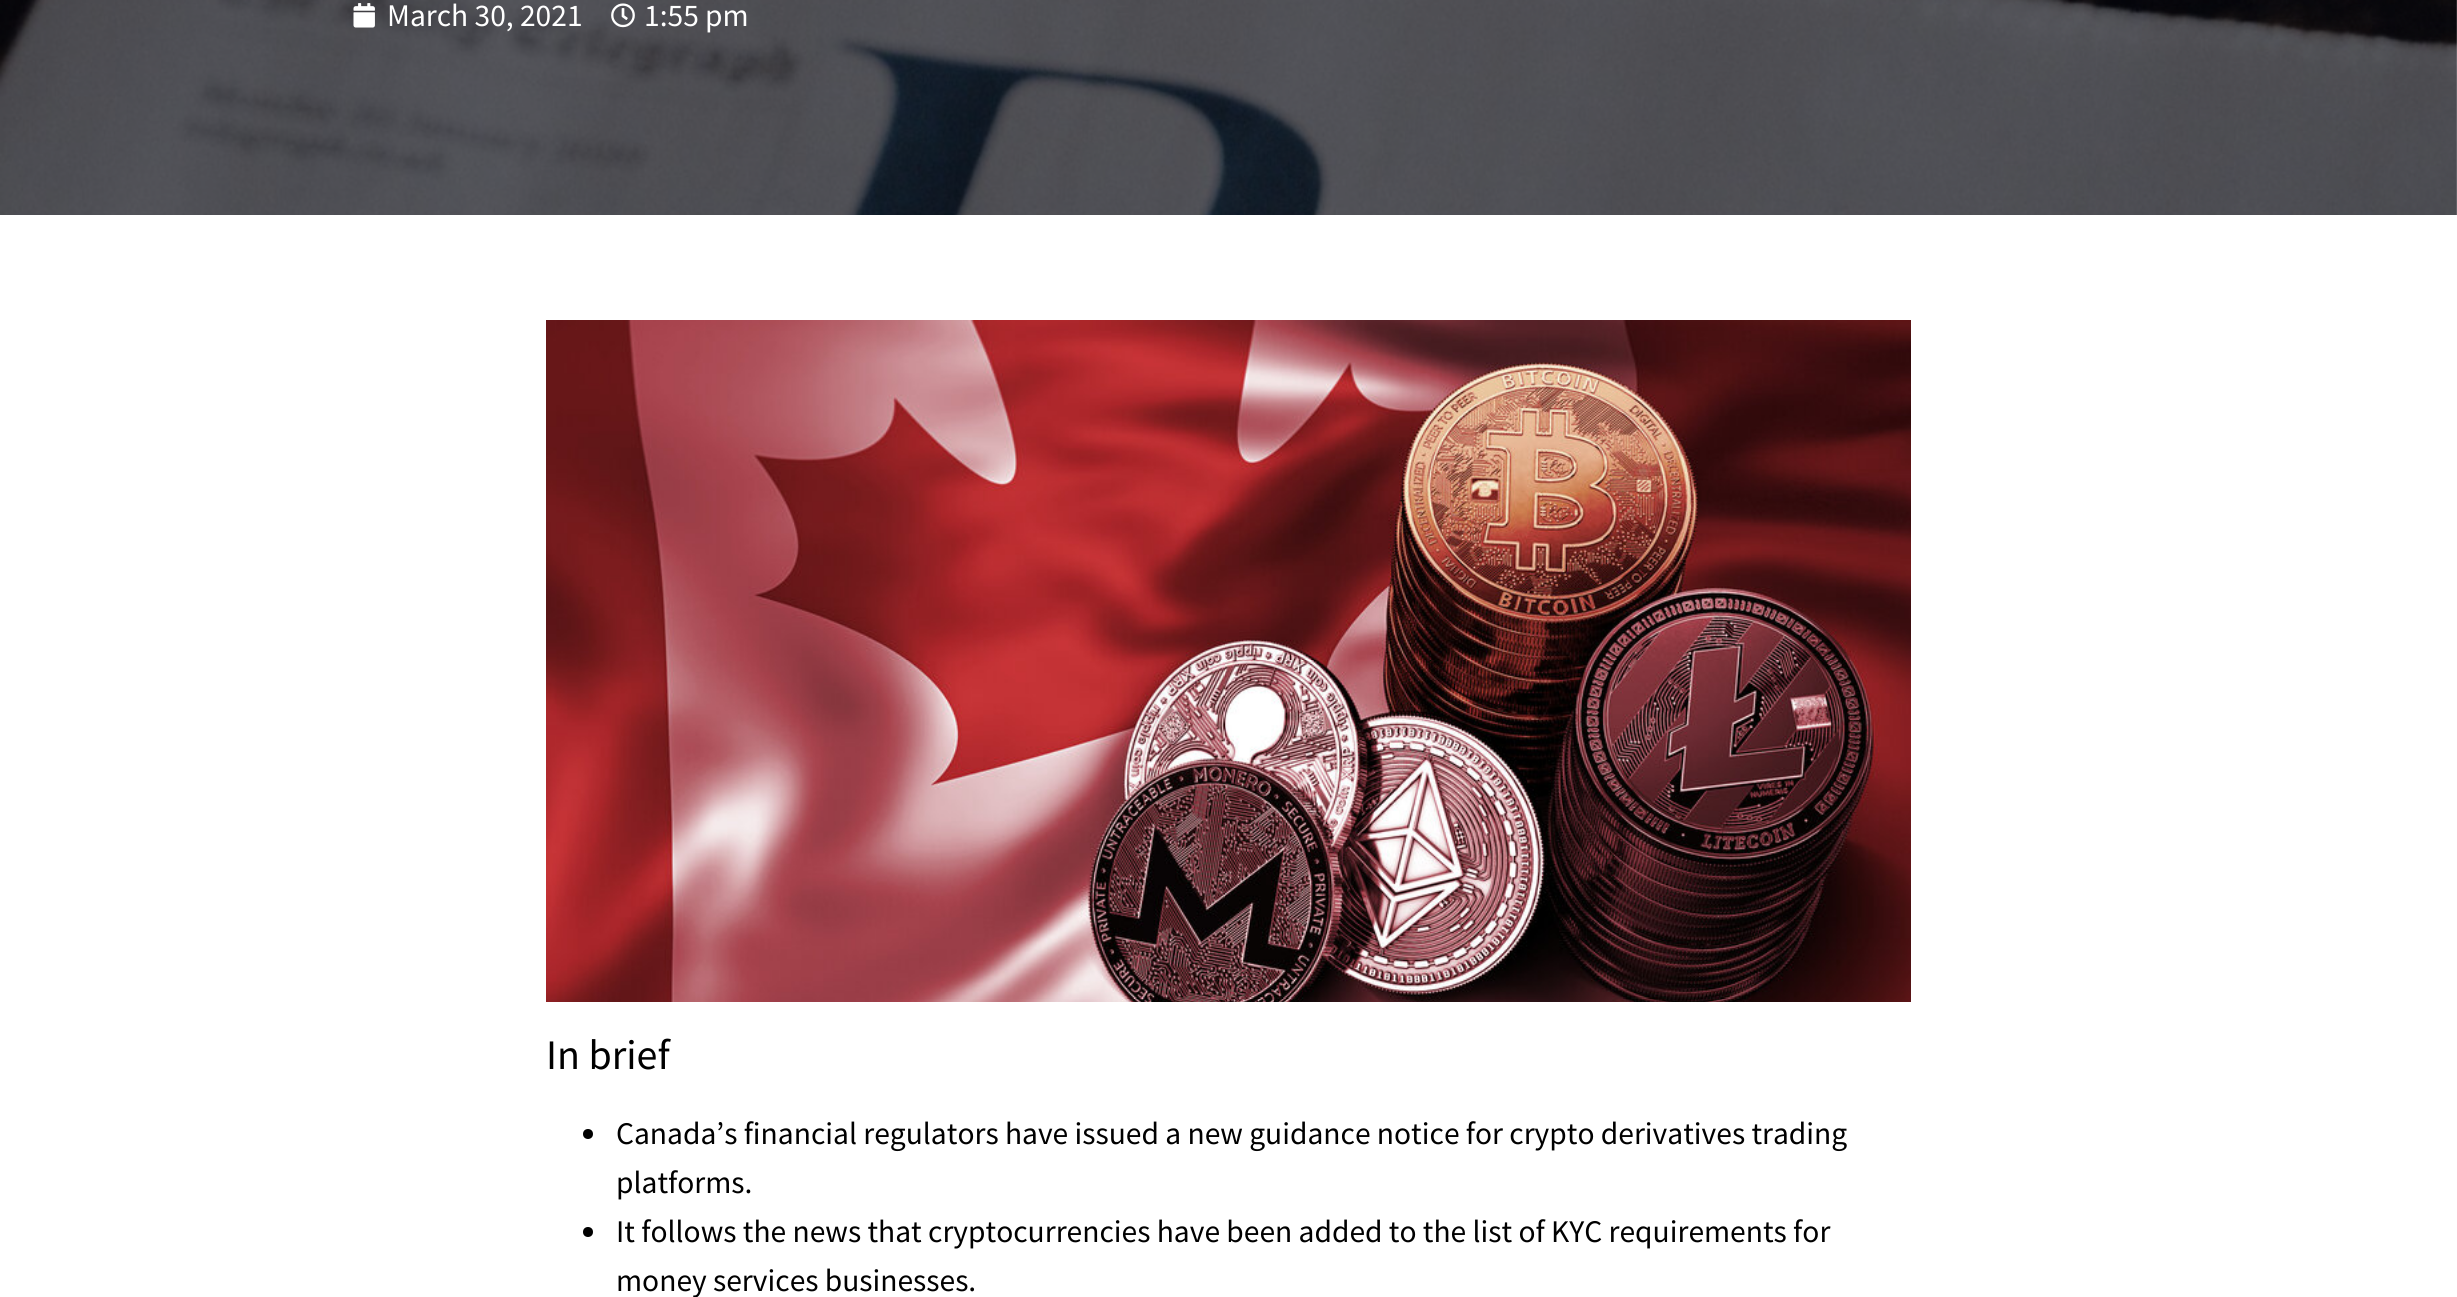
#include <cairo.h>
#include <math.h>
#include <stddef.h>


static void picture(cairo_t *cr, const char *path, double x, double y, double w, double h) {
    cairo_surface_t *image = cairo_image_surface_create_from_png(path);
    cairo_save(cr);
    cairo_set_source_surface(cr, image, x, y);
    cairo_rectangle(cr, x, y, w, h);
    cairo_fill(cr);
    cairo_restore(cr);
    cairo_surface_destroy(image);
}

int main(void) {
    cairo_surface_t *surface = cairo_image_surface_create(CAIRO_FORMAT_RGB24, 2457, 1297);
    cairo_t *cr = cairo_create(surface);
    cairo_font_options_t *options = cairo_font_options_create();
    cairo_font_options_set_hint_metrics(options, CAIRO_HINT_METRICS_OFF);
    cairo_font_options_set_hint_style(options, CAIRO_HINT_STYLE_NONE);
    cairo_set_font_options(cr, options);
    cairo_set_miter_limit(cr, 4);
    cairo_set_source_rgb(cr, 1, 1, 1);
    cairo_paint(cr);
    picture(cr, "img1.png", 0, 0, 2457, 215);
    picture(cr, "img2.png", 353, 3, 22, 25);
    cairo_select_font_face(cr, "Source Sans Pro", CAIRO_FONT_SLANT_NORMAL, CAIRO_FONT_WEIGHT_NORMAL);
    cairo_set_font_size(cr, 31.5);
    cairo_set_source_rgb(cr, 1, 1, 1);
    cairo_move_to(cr, 387, 26);
    cairo_show_text(cr, "March 30, 2021");
    picture(cr, "img3.png", 611, 3, 24, 25);
    cairo_move_to(cr, 644, 26);
    cairo_show_text(cr, "1:55 pm");
    picture(cr, "img4.png", 546, 320, 1365, 682);
    cairo_set_font_size(cr, 42);
    cairo_set_source_rgb(cr, 0, 0, 0);
    cairo_move_to(cr, 546, 1069);
    cairo_show_text(cr, "In brief");
    cairo_new_path(cr);
    cairo_arc(cr, 588, 1134, 5, 0, 2 * M_PI);
    cairo_fill(cr);
    cairo_set_font_size(cr, 31.5);
    cairo_move_to(cr, 616, 1144);
    cairo_show_text(cr, "Canada’s financial regulators have issued a new guidance notice for crypto derivatives trading");
    cairo_move_to(cr, 616, 1193);
    cairo_show_text(cr, "platforms.");
    cairo_new_path(cr);
    cairo_arc(cr, 588, 1232, 5, 0, 2 * M_PI);
    cairo_fill(cr);
    cairo_move_to(cr, 616, 1242);
    cairo_show_text(cr, "It follows the news that cryptocurrencies have been added to the list of KYC requirements for");
    cairo_move_to(cr, 616, 1291);
    cairo_show_text(cr, "money services businesses.");
    cairo_surface_write_to_png(surface, "page.png");
    cairo_font_options_destroy(options);
    cairo_destroy(cr);
    cairo_surface_destroy(surface);
    return 0;
}
